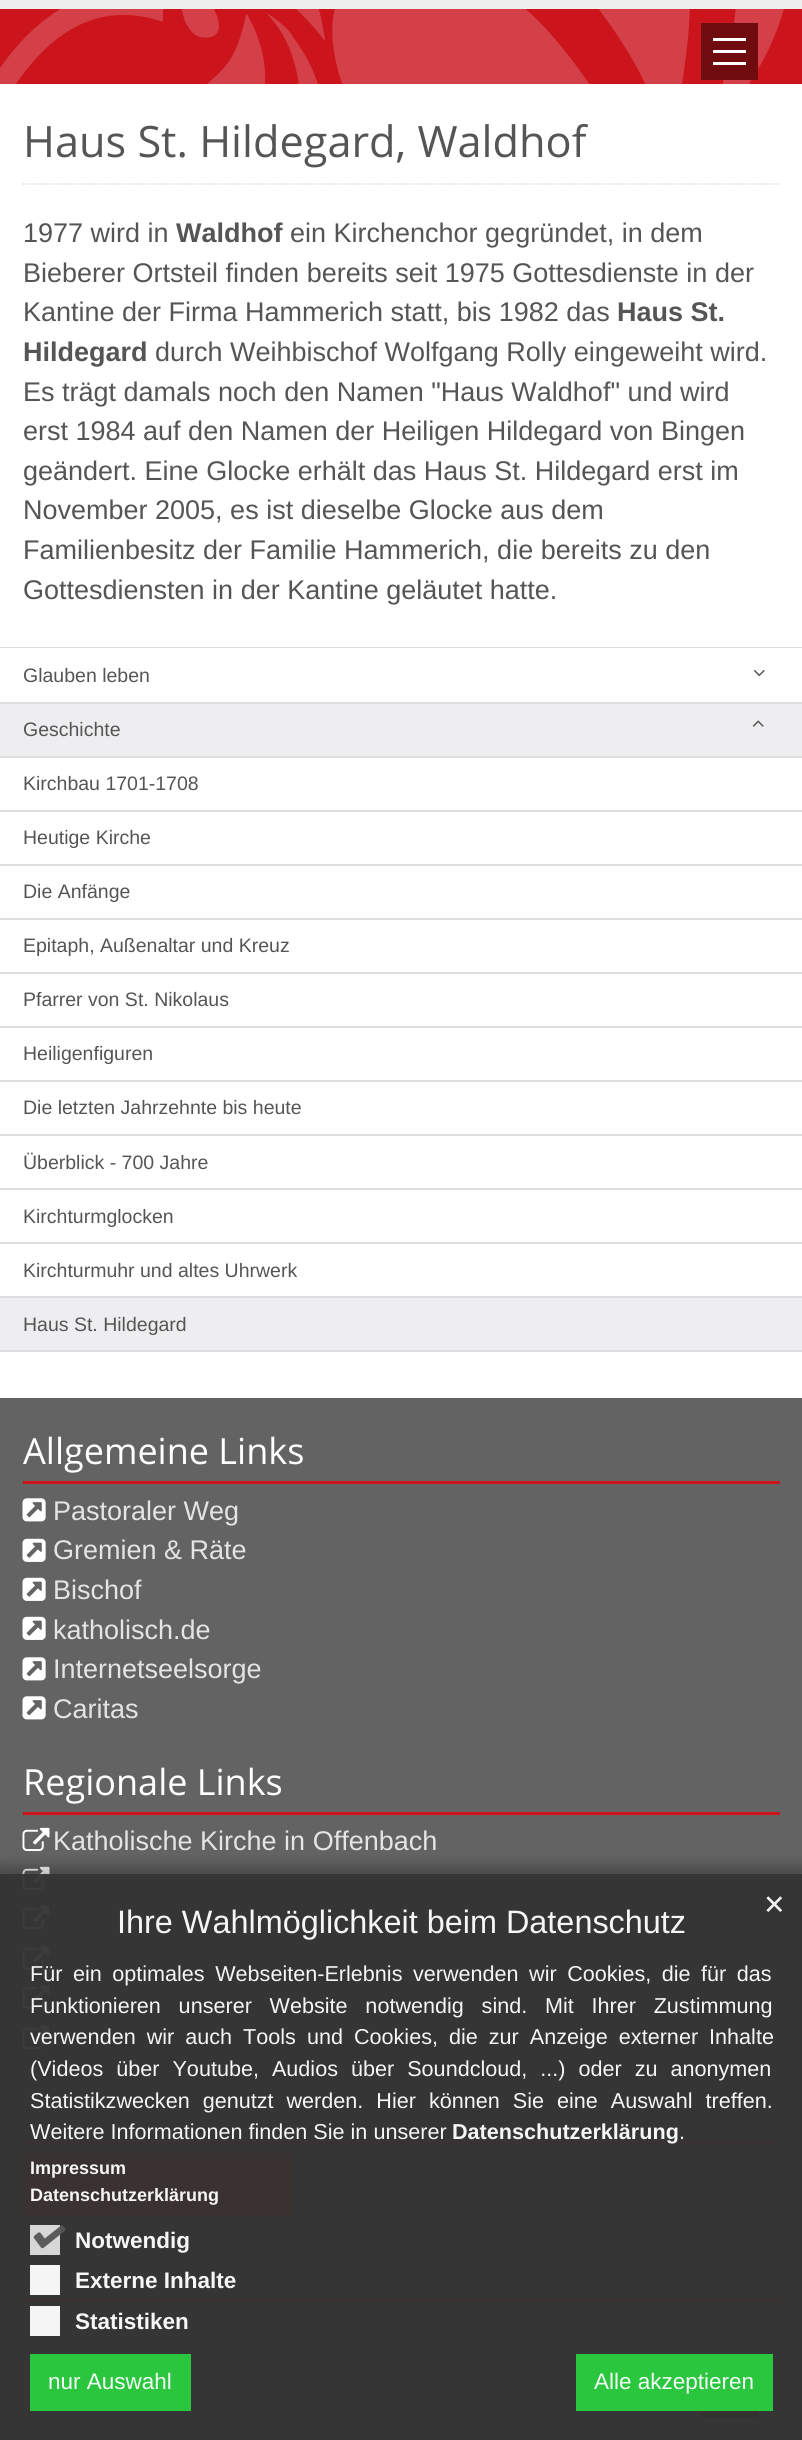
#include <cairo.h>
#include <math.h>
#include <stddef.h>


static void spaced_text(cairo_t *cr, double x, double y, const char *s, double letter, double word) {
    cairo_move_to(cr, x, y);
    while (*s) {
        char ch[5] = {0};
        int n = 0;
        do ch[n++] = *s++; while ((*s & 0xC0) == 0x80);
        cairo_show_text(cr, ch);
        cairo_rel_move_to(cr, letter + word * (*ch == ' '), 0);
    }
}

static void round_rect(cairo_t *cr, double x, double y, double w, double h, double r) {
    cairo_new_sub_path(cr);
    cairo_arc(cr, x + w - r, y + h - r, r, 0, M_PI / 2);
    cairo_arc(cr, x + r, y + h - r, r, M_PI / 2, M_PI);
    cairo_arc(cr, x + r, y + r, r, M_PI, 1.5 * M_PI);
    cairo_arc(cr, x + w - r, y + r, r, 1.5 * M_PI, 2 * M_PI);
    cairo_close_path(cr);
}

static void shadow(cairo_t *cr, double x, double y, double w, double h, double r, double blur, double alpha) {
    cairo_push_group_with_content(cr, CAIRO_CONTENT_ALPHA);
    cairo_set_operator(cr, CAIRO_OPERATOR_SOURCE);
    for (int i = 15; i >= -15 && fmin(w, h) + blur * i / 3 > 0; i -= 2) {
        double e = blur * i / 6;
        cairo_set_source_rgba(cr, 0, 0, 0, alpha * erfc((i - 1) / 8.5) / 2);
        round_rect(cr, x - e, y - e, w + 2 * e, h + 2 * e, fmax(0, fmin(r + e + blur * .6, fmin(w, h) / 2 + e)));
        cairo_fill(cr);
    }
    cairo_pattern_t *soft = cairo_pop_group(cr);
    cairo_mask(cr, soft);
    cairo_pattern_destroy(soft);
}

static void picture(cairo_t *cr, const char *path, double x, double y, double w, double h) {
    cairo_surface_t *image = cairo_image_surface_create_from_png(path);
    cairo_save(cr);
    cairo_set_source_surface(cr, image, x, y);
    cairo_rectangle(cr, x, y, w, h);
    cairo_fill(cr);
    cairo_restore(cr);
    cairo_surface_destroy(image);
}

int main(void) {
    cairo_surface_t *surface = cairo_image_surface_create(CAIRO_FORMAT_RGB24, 802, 2440);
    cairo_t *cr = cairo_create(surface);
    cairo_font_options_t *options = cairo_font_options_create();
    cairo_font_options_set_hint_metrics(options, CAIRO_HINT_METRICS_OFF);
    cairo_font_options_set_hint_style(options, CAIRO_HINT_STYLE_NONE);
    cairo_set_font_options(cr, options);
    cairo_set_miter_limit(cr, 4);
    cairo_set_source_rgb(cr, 1, 1, 1);
    cairo_paint(cr);
    cairo_set_source_rgb(cr, 0.933, 0.933, 0.933);
    cairo_rectangle(cr, 0, 0, 802, 9);
    cairo_fill(cr);
    cairo_set_source_rgb(cr, 0.8, 0.082, 0.114);
    cairo_rectangle(cr, 0, 9, 802, 75);
    cairo_fill(cr);
    picture(cr, "img1.png", 0, 9, 784, 75);
    cairo_set_source_rgb(cr, 0.439, 0.043, 0.063);
    cairo_rectangle(cr, 701, 23, 57, 57);
    cairo_fill(cr);
    cairo_set_source_rgb(cr, 1, 1, 1);
    cairo_rectangle(cr, 713, 50, 33, 3);
    cairo_fill(cr);
    cairo_rectangle(cr, 713, 38, 33, 3);
    cairo_fill(cr);
    cairo_rectangle(cr, 713, 62, 33, 3);
    cairo_fill(cr);
    cairo_new_path(cr);
    cairo_move_to(cr, 22.5, 184);
    cairo_line_to(cr, 780, 184);
    cairo_set_source_rgb(cr, 0.867, 0.867, 0.867);
    cairo_set_line_width(cr, 1.5);
    cairo_set_dash(cr, (double[]){1.5, 1.5}, 2, 0);
    cairo_stroke(cr);
    cairo_select_font_face(cr, "Open Sans", CAIRO_FONT_SLANT_NORMAL, CAIRO_FONT_WEIGHT_NORMAL);
    cairo_set_font_size(cr, 43.25);
    cairo_set_source_rgb(cr, 0.333, 0.333, 0.333);
    cairo_move_to(cr, 23, 157);
    cairo_show_text(cr, "Haus St. Hildegard, Waldhof");
    cairo_select_font_face(cr, "Liberation Sans", CAIRO_FONT_SLANT_NORMAL, CAIRO_FONT_WEIGHT_NORMAL);
    cairo_set_font_size(cr, 27);
    cairo_move_to(cr, 23, 242);
    cairo_show_text(cr, "1977 wird in");
    cairo_select_font_face(cr, "Liberation Sans", CAIRO_FONT_SLANT_NORMAL, CAIRO_FONT_WEIGHT_BOLD);
    cairo_move_to(cr, 176, 242);
    cairo_show_text(cr, "Waldhof");
    cairo_select_font_face(cr, "Liberation Sans", CAIRO_FONT_SLANT_NORMAL, CAIRO_FONT_WEIGHT_NORMAL);
    cairo_move_to(cr, 290, 242);
    cairo_show_text(cr, "ein Kirchenchor gegründet, in dem");
    cairo_move_to(cr, 23, 282);
    cairo_show_text(cr, "Bieberer Ortsteil finden bereits seit 1975 Gottesdienste in der");
    cairo_move_to(cr, 23, 321);
    cairo_show_text(cr, "Kantine der Firma Hammerich statt, bis 1982 das");
    cairo_select_font_face(cr, "Liberation Sans", CAIRO_FONT_SLANT_NORMAL, CAIRO_FONT_WEIGHT_BOLD);
    cairo_move_to(cr, 617, 321);
    cairo_show_text(cr, "Haus St.");
    cairo_move_to(cr, 23, 361);
    cairo_show_text(cr, "Hildegard");
    cairo_select_font_face(cr, "Liberation Sans", CAIRO_FONT_SLANT_NORMAL, CAIRO_FONT_WEIGHT_NORMAL);
    cairo_move_to(cr, 155, 361);
    cairo_show_text(cr, "durch Weihbischof Wolfgang Rolly eingeweiht wird.");
    cairo_move_to(cr, 23, 401);
    cairo_show_text(cr, "Es trägt damals noch den Namen \"Haus Waldhof\" und wird");
    cairo_move_to(cr, 23, 440);
    cairo_show_text(cr, "erst 1984 auf den Namen der Heiligen Hildegard von Bingen");
    cairo_move_to(cr, 23, 480);
    cairo_show_text(cr, "geändert. Eine Glocke erhält das Haus St. Hildegard erst im");
    cairo_move_to(cr, 23, 519);
    cairo_show_text(cr, "November 2005, es ist dieselbe Glocke aus dem");
    cairo_move_to(cr, 23, 559);
    cairo_show_text(cr, "Familienbesitz der Familie Hammerich, die bereits zu den");
    cairo_move_to(cr, 23, 599);
    cairo_show_text(cr, "Gottesdiensten in der Kantine geläutet hatte.");
    cairo_set_source_rgb(cr, 0.867, 0.867, 0.867);
    cairo_rectangle(cr, 0, 647, 802, 1);
    cairo_fill(cr);
    cairo_rectangle(cr, 0, 1350, 802, 2);
    cairo_fill(cr);
    cairo_set_font_size(cr, 19.5);
    cairo_set_source_rgb(cr, 0.333, 0.333, 0.333);
    cairo_move_to(cr, 23, 682);
    cairo_show_text(cr, "Glauben leben");
    picture(cr, "img2.png", 753, 669, 12, 8);
    cairo_set_source_rgb(cr, 0.933, 0.933, 0.941);
    cairo_rectangle(cr, 0, 704, 802, 646);
    cairo_fill(cr);
    cairo_set_source_rgb(cr, 0.867, 0.867, 0.867);
    cairo_rectangle(cr, 0, 702, 802, 2);
    cairo_fill(cr);
    cairo_set_source_rgb(cr, 0.333, 0.333, 0.333);
    cairo_move_to(cr, 23, 736);
    cairo_show_text(cr, "Geschichte");
    picture(cr, "img3.png", 752, 720, 12, 7);
    cairo_set_source_rgb(cr, 1, 1, 1);
    cairo_rectangle(cr, 0, 758, 802, 52);
    cairo_fill(cr);
    cairo_set_source_rgb(cr, 0.867, 0.867, 0.867);
    cairo_rectangle(cr, 0, 756, 802, 2);
    cairo_fill(cr);
    cairo_set_source_rgb(cr, 0.333, 0.333, 0.333);
    cairo_move_to(cr, 23, 790);
    cairo_show_text(cr, "Kirchbau 1701-1708");
    cairo_set_source_rgb(cr, 1, 1, 1);
    cairo_rectangle(cr, 0, 812, 802, 52);
    cairo_fill(cr);
    cairo_set_source_rgb(cr, 0.867, 0.867, 0.867);
    cairo_rectangle(cr, 0, 810, 802, 2);
    cairo_fill(cr);
    cairo_set_source_rgb(cr, 0.333, 0.333, 0.333);
    cairo_move_to(cr, 23, 844);
    cairo_show_text(cr, "Heutige Kirche");
    cairo_set_source_rgb(cr, 1, 1, 1);
    cairo_rectangle(cr, 0, 866, 802, 52);
    cairo_fill(cr);
    cairo_set_source_rgb(cr, 0.867, 0.867, 0.867);
    cairo_rectangle(cr, 0, 864, 802, 2);
    cairo_fill(cr);
    cairo_set_source_rgb(cr, 0.333, 0.333, 0.333);
    cairo_move_to(cr, 23, 898);
    cairo_show_text(cr, "Die Anfänge");
    cairo_set_source_rgb(cr, 1, 1, 1);
    cairo_rectangle(cr, 0, 920, 802, 52);
    cairo_fill(cr);
    cairo_set_source_rgb(cr, 0.867, 0.867, 0.867);
    cairo_rectangle(cr, 0, 918, 802, 2);
    cairo_fill(cr);
    cairo_set_source_rgb(cr, 0.333, 0.333, 0.333);
    cairo_move_to(cr, 23, 952);
    cairo_show_text(cr, "Epitaph, Außenaltar und Kreuz");
    cairo_set_source_rgb(cr, 1, 1, 1);
    cairo_rectangle(cr, 0, 974, 802, 52);
    cairo_fill(cr);
    cairo_set_source_rgb(cr, 0.867, 0.867, 0.867);
    cairo_rectangle(cr, 0, 972, 802, 2);
    cairo_fill(cr);
    cairo_set_source_rgb(cr, 0.333, 0.333, 0.333);
    cairo_move_to(cr, 23, 1006);
    cairo_show_text(cr, "Pfarrer von St. Nikolaus");
    cairo_set_source_rgb(cr, 1, 1, 1);
    cairo_rectangle(cr, 0, 1028, 802, 52);
    cairo_fill(cr);
    cairo_set_source_rgb(cr, 0.867, 0.867, 0.867);
    cairo_rectangle(cr, 0, 1026, 802, 2);
    cairo_fill(cr);
    cairo_set_source_rgb(cr, 0.333, 0.333, 0.333);
    cairo_move_to(cr, 23, 1060);
    cairo_show_text(cr, "Heiligenfiguren");
    cairo_set_source_rgb(cr, 1, 1, 1);
    cairo_rectangle(cr, 0, 1082, 802, 52);
    cairo_fill(cr);
    cairo_set_source_rgb(cr, 0.867, 0.867, 0.867);
    cairo_rectangle(cr, 0, 1080, 802, 2);
    cairo_fill(cr);
    cairo_set_source_rgb(cr, 0.333, 0.333, 0.333);
    cairo_move_to(cr, 23, 1114);
    cairo_show_text(cr, "Die letzten Jahrzehnte bis heute");
    cairo_set_source_rgb(cr, 1, 1, 1);
    cairo_rectangle(cr, 0, 1136, 802, 52);
    cairo_fill(cr);
    cairo_set_source_rgb(cr, 0.867, 0.867, 0.867);
    cairo_rectangle(cr, 0, 1134, 802, 2);
    cairo_fill(cr);
    cairo_set_source_rgb(cr, 0.333, 0.333, 0.333);
    cairo_move_to(cr, 23, 1169);
    cairo_show_text(cr, "Überblick - 700 Jahre");
    cairo_set_source_rgb(cr, 1, 1, 1);
    cairo_rectangle(cr, 0, 1190, 802, 52);
    cairo_fill(cr);
    cairo_set_source_rgb(cr, 0.867, 0.867, 0.867);
    cairo_rectangle(cr, 0, 1188, 802, 2);
    cairo_fill(cr);
    cairo_set_source_rgb(cr, 0.333, 0.333, 0.333);
    cairo_move_to(cr, 23, 1223);
    cairo_show_text(cr, "Kirchturmglocken");
    cairo_set_source_rgb(cr, 1, 1, 1);
    cairo_rectangle(cr, 0, 1244, 802, 52);
    cairo_fill(cr);
    cairo_set_source_rgb(cr, 0.867, 0.867, 0.867);
    cairo_rectangle(cr, 0, 1242, 802, 2);
    cairo_fill(cr);
    cairo_set_source_rgb(cr, 0.333, 0.333, 0.333);
    cairo_move_to(cr, 23, 1277);
    cairo_show_text(cr, "Kirchturmuhr und altes Uhrwerk");
    cairo_set_source_rgb(cr, 0.867, 0.867, 0.867);
    cairo_rectangle(cr, 0, 1296, 802, 2);
    cairo_fill(cr);
    cairo_set_source_rgb(cr, 0.333, 0.333, 0.333);
    cairo_move_to(cr, 23, 1331);
    cairo_show_text(cr, "Haus St. Hildegard");
    cairo_set_source_rgb(cr, 0.388, 0.388, 0.388);
    cairo_rectangle(cr, 0, 1398, 802, 1042);
    cairo_fill(cr);
    cairo_set_source_rgb(cr, 0.8, 0.082, 0.114);
    cairo_rectangle(cr, 23, 1481, 757, 3);
    cairo_fill(cr);
    cairo_select_font_face(cr, "Open Sans", CAIRO_FONT_SLANT_NORMAL, CAIRO_FONT_WEIGHT_NORMAL);
    cairo_set_font_size(cr, 36);
    cairo_set_source_rgb(cr, 1, 1, 1);
    cairo_move_to(cr, 23, 1464);
    cairo_show_text(cr, "Allgemeine Links");
    picture(cr, "img4.png", 22, 1498, 24, 24);
    cairo_select_font_face(cr, "Liberation Sans", CAIRO_FONT_SLANT_NORMAL, CAIRO_FONT_WEIGHT_NORMAL);
    cairo_set_font_size(cr, 27);
    cairo_set_source_rgb(cr, 0.894, 0.894, 0.894);
    cairo_move_to(cr, 53, 1520);
    cairo_show_text(cr, "Pastoraler Weg");
    picture(cr, "img5.png", 22, 1538, 24, 24);
    cairo_move_to(cr, 53, 1559);
    cairo_show_text(cr, "Gremien & Räte");
    picture(cr, "img5.png", 22, 1577, 24, 24);
    cairo_move_to(cr, 53, 1599);
    cairo_show_text(cr, "Bischof");
    picture(cr, "img5.png", 22, 1616, 24, 24);
    cairo_move_to(cr, 53, 1639);
    cairo_show_text(cr, "katholisch.de");
    picture(cr, "img4.png", 22, 1657, 24, 24);
    cairo_move_to(cr, 53, 1678);
    cairo_show_text(cr, "Internetseelsorge");
    picture(cr, "img4.png", 22, 1696, 24, 24);
    cairo_move_to(cr, 53, 1718);
    cairo_show_text(cr, "Caritas");
    cairo_set_source_rgb(cr, 0.8, 0.082, 0.114);
    cairo_rectangle(cr, 23, 1812, 757, 3);
    cairo_fill(cr);
    cairo_select_font_face(cr, "Open Sans", CAIRO_FONT_SLANT_NORMAL, CAIRO_FONT_WEIGHT_NORMAL);
    cairo_set_font_size(cr, 36);
    cairo_set_source_rgb(cr, 1, 1, 1);
    cairo_move_to(cr, 23, 1795);
    cairo_show_text(cr, "Regionale Links");
    picture(cr, "img6.png", 22, 1827, 28, 24);
    cairo_select_font_face(cr, "Liberation Sans", CAIRO_FONT_SLANT_NORMAL, CAIRO_FONT_WEIGHT_NORMAL);
    cairo_set_font_size(cr, 27);
    cairo_set_source_rgb(cr, 0.894, 0.894, 0.894);
    cairo_move_to(cr, 53, 1850);
    cairo_show_text(cr, "Katholische Kirche in Offenbach");
    picture(cr, "img6.png", 22, 1866, 28, 24);
    picture(cr, "img6.png", 22, 1905, 28, 24);
    picture(cr, "img7.png", 22, 1946, 28, 24);
    picture(cr, "img7.png", 22, 1985, 28, 24);
    picture(cr, "img6.png", 22, 2025, 28, 24);
    cairo_set_source_rgb(cr, 0.8, 0.082, 0.114);
    cairo_rectangle(cr, 23, 2142, 757, 3);
    cairo_fill(cr);
    cairo_rectangle(cr, 23, 2153, 268, 63);
    cairo_fill(cr);
    cairo_rectangle(cr, 23, 2298, 757, 3);
    cairo_fill(cr);
    cairo_set_source_rgb(cr, 0.439, 0.043, 0.063);
    cairo_rectangle(cr, 701, 2361, 57, 57);
    cairo_fill(cr);
    picture(cr, "img9.png", 720, 2382, 19, 12);
    cairo_save(cr);
    cairo_rectangle(cr, 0, 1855, 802, 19);
    cairo_clip(cr);
    cairo_set_source_rgb(cr, 0, 0, 0);
    shadow(cr, -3, 1866, 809, 573, 0, 7.5, 0.28);
    cairo_restore(cr);
    cairo_set_source_rgba(cr, 0.2, 0.2, 0.2, 0.95);
    cairo_rectangle(cr, 0, 1874, 802, 566);
    cairo_fill(cr);
    cairo_select_font_face(cr, "DejaVu Sans", CAIRO_FONT_SLANT_NORMAL, CAIRO_FONT_WEIGHT_NORMAL);
    cairo_set_source_rgb(cr, 0.961, 0.961, 0.961);
    cairo_move_to(cr, 763, 1914);
    cairo_show_text(cr, "✕");
    cairo_select_font_face(cr, "Liberation Sans", CAIRO_FONT_SLANT_NORMAL, CAIRO_FONT_WEIGHT_NORMAL);
    cairo_set_font_size(cr, 32.4);
    cairo_move_to(cr, 117, 1933);
    cairo_show_text(cr, "Ihre Wahlmöglichkeit beim Datenschutz");
    cairo_set_font_size(cr, 21.6);
    spaced_text(cr, 30, 1981, "Für ein optimales Webseiten-Erlebnis verwenden wir Cookies, die für das", 0, 4.5);
    spaced_text(cr, 30, 2013, "Funktionieren unserer Website notwendig sind. Mit Ihrer Zustimmung", 0, 11.75);
    spaced_text(cr, 30, 2044, "verwenden wir auch Tools und Cookies, die zur Anzeige externer Inhalte", 0, 5);
    spaced_text(cr, 30, 2076, "(Videos über Youtube, Audios über Soundcloud, ...) oder zu anonymen", 0, 7);
    spaced_text(cr, 30, 2108, "Statistikzwecken genutzt werden. Hier können Sie eine Auswahl treffen.", 0, 7);
    cairo_move_to(cr, 30, 2139);
    cairo_show_text(cr, "Weitere Informationen finden Sie in unserer");
    cairo_select_font_face(cr, "Liberation Sans", CAIRO_FONT_SLANT_NORMAL, CAIRO_FONT_WEIGHT_BOLD);
    cairo_move_to(cr, 452, 2139);
    cairo_show_text(cr, "Datenschutzerklärung");
    cairo_select_font_face(cr, "Liberation Sans", CAIRO_FONT_SLANT_NORMAL, CAIRO_FONT_WEIGHT_NORMAL);
    cairo_move_to(cr, 679, 2139);
    cairo_show_text(cr, ".");
    cairo_select_font_face(cr, "Liberation Sans", CAIRO_FONT_SLANT_NORMAL, CAIRO_FONT_WEIGHT_BOLD);
    cairo_set_font_size(cr, 18);
    cairo_move_to(cr, 30, 2174);
    cairo_show_text(cr, "Impressum");
    cairo_move_to(cr, 30, 2201);
    cairo_show_text(cr, "Datenschutzerklärung");
    cairo_set_source_rgb(cr, 0.843, 0.843, 0.843);
    cairo_rectangle(cr, 30, 2225, 30, 30);
    cairo_fill(cr);
    picture(cr, "img8.png", 33, 2225, 33, 24);
    cairo_set_font_size(cr, 22.5);
    cairo_set_source_rgb(cr, 0.961, 0.961, 0.961);
    cairo_move_to(cr, 75, 2248);
    cairo_show_text(cr, "Notwendig");
    cairo_set_source_rgba(cr, 1, 1, 1, 0.95);
    cairo_rectangle(cr, 30, 2265, 30, 30);
    cairo_fill(cr);
    cairo_set_source_rgb(cr, 0.961, 0.961, 0.961);
    cairo_move_to(cr, 75, 2288);
    cairo_show_text(cr, "Externe Inhalte");
    cairo_set_source_rgba(cr, 1, 1, 1, 0.95);
    cairo_rectangle(cr, 30, 2306, 30, 30);
    cairo_fill(cr);
    cairo_set_source_rgb(cr, 0.961, 0.961, 0.961);
    cairo_move_to(cr, 75, 2329);
    cairo_show_text(cr, "Statistiken");
    cairo_set_source_rgba(cr, 0.161, 0.808, 0.247, 0.95);
    cairo_rectangle(cr, 30, 2354, 161, 57);
    cairo_fill(cr);
    cairo_select_font_face(cr, "Liberation Sans", CAIRO_FONT_SLANT_NORMAL, CAIRO_FONT_WEIGHT_NORMAL);
    cairo_set_source_rgb(cr, 0.957, 0.988, 0.961);
    cairo_move_to(cr, 48, 2389);
    cairo_show_text(cr, "nur Auswahl");
    cairo_set_source_rgba(cr, 0.161, 0.808, 0.247, 0.95);
    cairo_rectangle(cr, 576, 2354, 197, 57);
    cairo_fill(cr);
    cairo_set_source_rgb(cr, 0.957, 0.988, 0.961);
    cairo_move_to(cr, 594, 2389);
    cairo_show_text(cr, "Alle akzeptieren");
    cairo_surface_write_to_png(surface, "page.png");
    cairo_font_options_destroy(options);
    cairo_destroy(cr);
    cairo_surface_destroy(surface);
    return 0;
}
